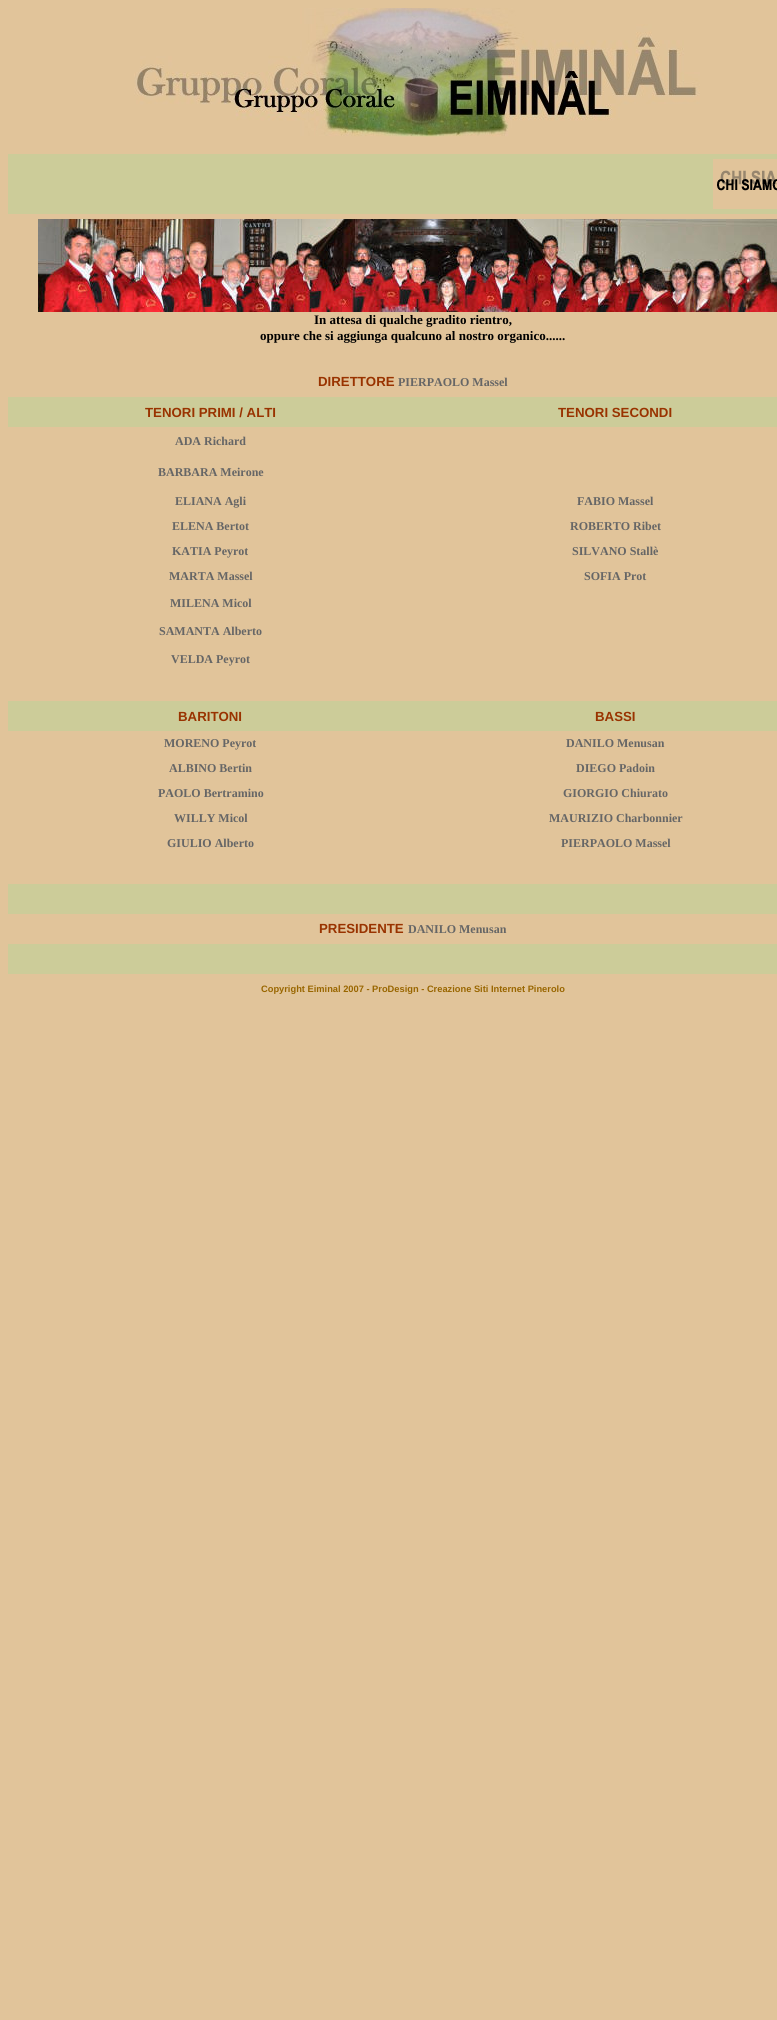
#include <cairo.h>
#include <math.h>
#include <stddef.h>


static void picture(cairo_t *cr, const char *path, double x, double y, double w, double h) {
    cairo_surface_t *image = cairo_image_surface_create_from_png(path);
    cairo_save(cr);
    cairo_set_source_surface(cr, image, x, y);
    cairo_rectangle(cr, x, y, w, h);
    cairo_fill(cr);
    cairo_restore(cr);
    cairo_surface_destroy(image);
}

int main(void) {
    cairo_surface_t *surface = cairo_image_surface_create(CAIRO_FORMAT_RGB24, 777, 2020);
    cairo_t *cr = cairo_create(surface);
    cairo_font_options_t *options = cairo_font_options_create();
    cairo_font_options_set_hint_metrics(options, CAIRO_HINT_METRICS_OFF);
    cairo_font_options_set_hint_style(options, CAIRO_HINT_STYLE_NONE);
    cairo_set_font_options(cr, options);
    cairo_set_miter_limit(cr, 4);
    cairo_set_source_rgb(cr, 0.882, 0.769, 0.604);
    cairo_paint(cr);
    picture(cr, "img1.png", 134, 8, 566, 129);
    cairo_set_source_rgb(cr, 0.8, 0.8, 0.6);
    cairo_rectangle(cr, 8, 154, 769, 60);
    cairo_fill(cr);
    picture(cr, "img2.png", 713, 159, 64, 50);
    picture(cr, "img3.png", 38, 219, 739, 93);
    cairo_select_font_face(cr, "Liberation Serif", CAIRO_FONT_SLANT_NORMAL, CAIRO_FONT_WEIGHT_BOLD);
    cairo_set_font_size(cr, 13);
    cairo_set_source_rgb(cr, 0, 0, 0);
    cairo_move_to(cr, 314, 324);
    cairo_show_text(cr, "In attesa di qualche gradito rientro,");
    cairo_move_to(cr, 260, 340);
    cairo_show_text(cr, "oppure che si aggiunga qualcuno al nostro organico......");
    cairo_select_font_face(cr, "Liberation Sans", CAIRO_FONT_SLANT_NORMAL, CAIRO_FONT_WEIGHT_BOLD);
    cairo_set_font_size(cr, 13.25);
    cairo_set_source_rgb(cr, 0.6, 0.2, 0);
    cairo_move_to(cr, 318, 386);
    cairo_show_text(cr, "DIRETTORE");
    cairo_select_font_face(cr, "Liberation Serif", CAIRO_FONT_SLANT_NORMAL, CAIRO_FONT_WEIGHT_BOLD);
    cairo_set_font_size(cr, 12);
    cairo_set_source_rgb(cr, 0.4, 0.4, 0.4);
    cairo_move_to(cr, 398, 386);
    cairo_show_text(cr, "PIERPAOLO Massel");
    cairo_set_source_rgb(cr, 0.8, 0.8, 0.6);
    cairo_rectangle(cr, 8, 397, 769, 30);
    cairo_fill(cr);
    cairo_select_font_face(cr, "Liberation Sans", CAIRO_FONT_SLANT_NORMAL, CAIRO_FONT_WEIGHT_BOLD);
    cairo_set_font_size(cr, 13.25);
    cairo_set_source_rgb(cr, 0.6, 0.2, 0);
    cairo_move_to(cr, 145, 417);
    cairo_show_text(cr, "TENORI PRIMI / ALTI");
    cairo_move_to(cr, 558, 417);
    cairo_show_text(cr, "TENORI SECONDI");
    cairo_select_font_face(cr, "Liberation Serif", CAIRO_FONT_SLANT_NORMAL, CAIRO_FONT_WEIGHT_BOLD);
    cairo_set_font_size(cr, 12);
    cairo_set_source_rgb(cr, 0.4, 0.4, 0.4);
    cairo_move_to(cr, 175, 445);
    cairo_show_text(cr, "ADA Richard");
    cairo_move_to(cr, 158, 476);
    cairo_show_text(cr, "BARBARA Meirone");
    cairo_move_to(cr, 175, 505);
    cairo_show_text(cr, "ELIANA Agli");
    cairo_move_to(cr, 577, 505);
    cairo_show_text(cr, "FABIO Massel");
    cairo_move_to(cr, 172, 530);
    cairo_show_text(cr, "ELENA Bertot");
    cairo_move_to(cr, 570, 530);
    cairo_show_text(cr, "ROBERTO Ribet");
    cairo_move_to(cr, 172, 555);
    cairo_show_text(cr, "KATIA Peyrot");
    cairo_move_to(cr, 572, 555);
    cairo_show_text(cr, "SILVANO Stallè");
    cairo_move_to(cr, 169, 580);
    cairo_show_text(cr, "MARTA Massel");
    cairo_move_to(cr, 584, 580);
    cairo_show_text(cr, "SOFIA Prot");
    cairo_move_to(cr, 170, 607);
    cairo_show_text(cr, "MILENA Micol");
    cairo_move_to(cr, 159, 635);
    cairo_show_text(cr, "SAMANTA Alberto");
    cairo_move_to(cr, 171, 663);
    cairo_show_text(cr, "VELDA Peyrot");
    cairo_set_source_rgb(cr, 0.8, 0.8, 0.6);
    cairo_rectangle(cr, 8, 701, 769, 30);
    cairo_fill(cr);
    cairo_select_font_face(cr, "Liberation Sans", CAIRO_FONT_SLANT_NORMAL, CAIRO_FONT_WEIGHT_BOLD);
    cairo_set_font_size(cr, 13.25);
    cairo_set_source_rgb(cr, 0.6, 0.2, 0);
    cairo_move_to(cr, 178, 721);
    cairo_show_text(cr, "BARITONI");
    cairo_move_to(cr, 595, 721);
    cairo_show_text(cr, "BASSI");
    cairo_select_font_face(cr, "Liberation Serif", CAIRO_FONT_SLANT_NORMAL, CAIRO_FONT_WEIGHT_BOLD);
    cairo_set_font_size(cr, 12);
    cairo_set_source_rgb(cr, 0.4, 0.4, 0.4);
    cairo_move_to(cr, 164, 747);
    cairo_show_text(cr, "MORENO Peyrot");
    cairo_move_to(cr, 566, 747);
    cairo_show_text(cr, "DANILO Menusan");
    cairo_move_to(cr, 169, 772);
    cairo_show_text(cr, "ALBINO Bertin");
    cairo_move_to(cr, 576, 772);
    cairo_show_text(cr, "DIEGO Padoin");
    cairo_move_to(cr, 158, 797);
    cairo_show_text(cr, "PAOLO Bertramino");
    cairo_move_to(cr, 563, 797);
    cairo_show_text(cr, "GIORGIO Chiurato");
    cairo_move_to(cr, 174, 822);
    cairo_show_text(cr, "WILLY Micol");
    cairo_move_to(cr, 549, 822);
    cairo_show_text(cr, "MAURIZIO Charbonnier");
    cairo_move_to(cr, 167, 847);
    cairo_show_text(cr, "GIULIO Alberto");
    cairo_move_to(cr, 561, 847);
    cairo_show_text(cr, "PIERPAOLO Massel");
    cairo_set_source_rgb(cr, 0.8, 0.8, 0.6);
    cairo_rectangle(cr, 8, 884, 769, 30);
    cairo_fill(cr);
    cairo_select_font_face(cr, "Liberation Sans", CAIRO_FONT_SLANT_NORMAL, CAIRO_FONT_WEIGHT_BOLD);
    cairo_set_font_size(cr, 13.25);
    cairo_set_source_rgb(cr, 0.6, 0.2, 0);
    cairo_move_to(cr, 319, 933);
    cairo_show_text(cr, "PRESIDENTE");
    cairo_select_font_face(cr, "Liberation Serif", CAIRO_FONT_SLANT_NORMAL, CAIRO_FONT_WEIGHT_BOLD);
    cairo_set_font_size(cr, 12);
    cairo_set_source_rgb(cr, 0.4, 0.4, 0.4);
    cairo_move_to(cr, 408, 933);
    cairo_show_text(cr, "DANILO Menusan");
    cairo_set_source_rgb(cr, 0.8, 0.8, 0.6);
    cairo_rectangle(cr, 8, 944, 769, 30);
    cairo_fill(cr);
    cairo_select_font_face(cr, "Liberation Sans", CAIRO_FONT_SLANT_NORMAL, CAIRO_FONT_WEIGHT_BOLD);
    cairo_set_font_size(cr, 9.3);
    cairo_set_source_rgb(cr, 0.6, 0.4, 0);
    cairo_move_to(cr, 261, 992);
    cairo_show_text(cr, "Copyright Eiminal 2007 - ProDesign - Creazione Siti Internet Pinerolo");
    cairo_surface_write_to_png(surface, "page.png");
    cairo_font_options_destroy(options);
    cairo_destroy(cr);
    cairo_surface_destroy(surface);
    return 0;
}
